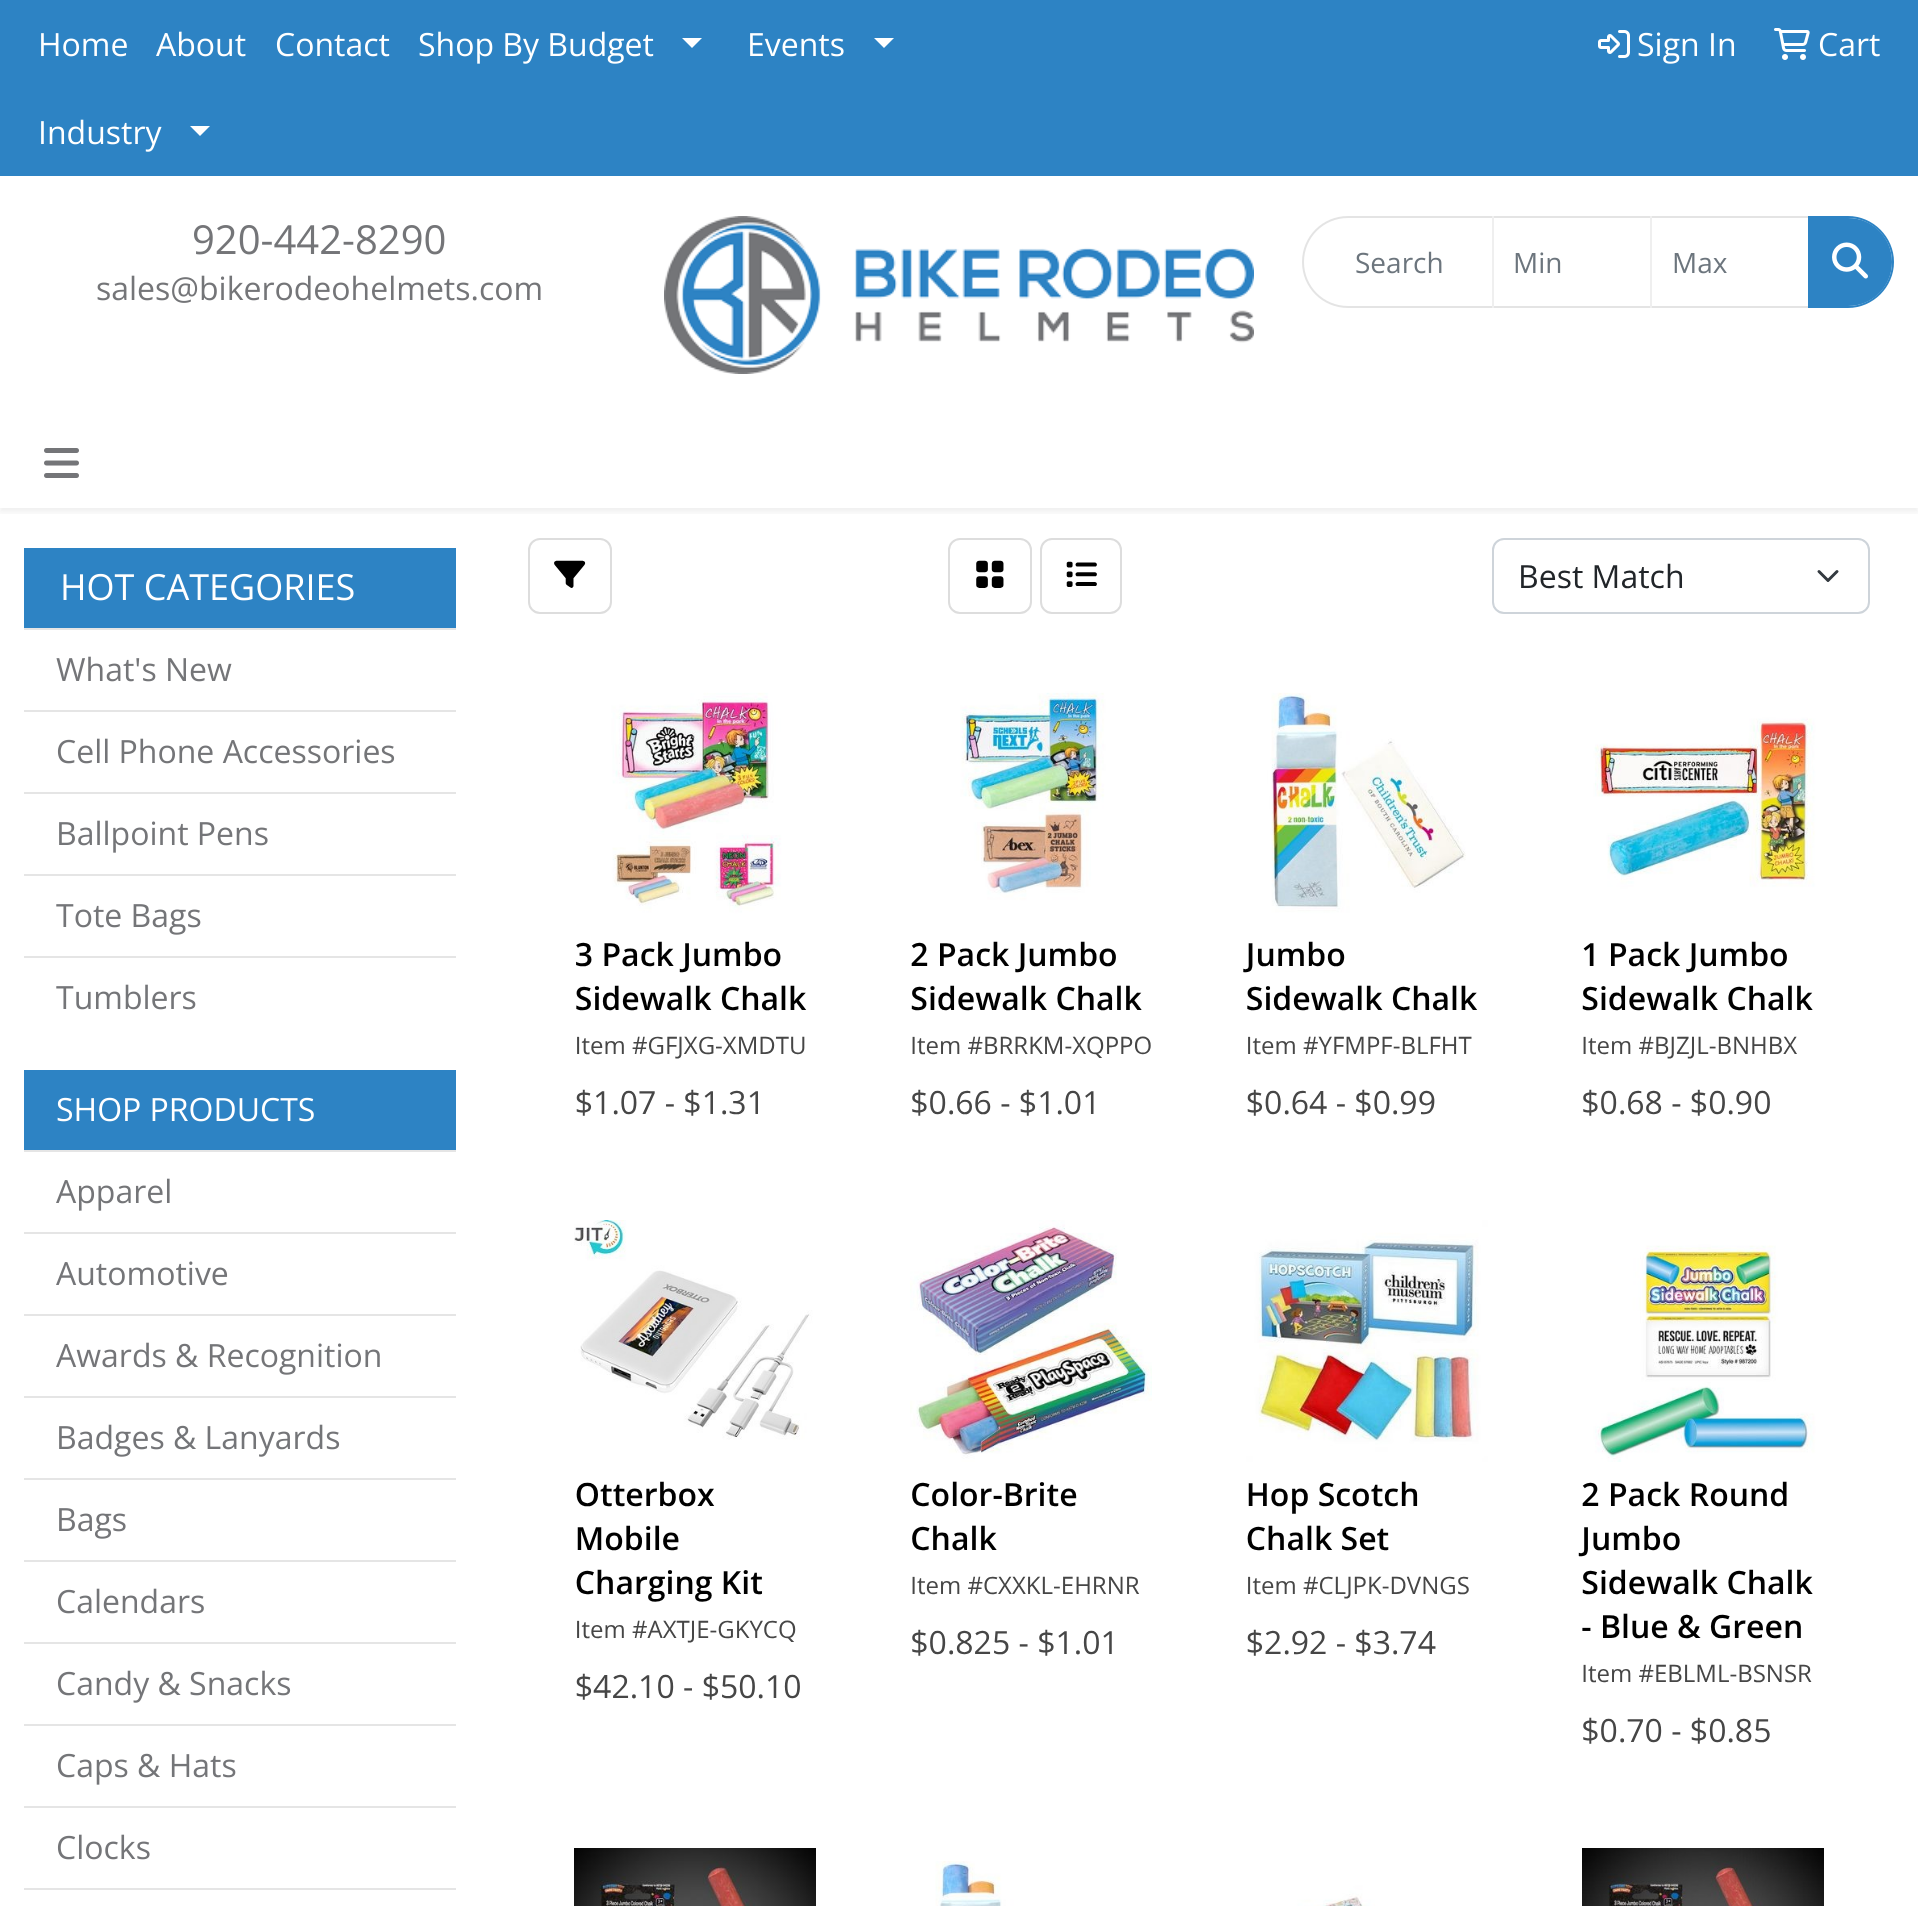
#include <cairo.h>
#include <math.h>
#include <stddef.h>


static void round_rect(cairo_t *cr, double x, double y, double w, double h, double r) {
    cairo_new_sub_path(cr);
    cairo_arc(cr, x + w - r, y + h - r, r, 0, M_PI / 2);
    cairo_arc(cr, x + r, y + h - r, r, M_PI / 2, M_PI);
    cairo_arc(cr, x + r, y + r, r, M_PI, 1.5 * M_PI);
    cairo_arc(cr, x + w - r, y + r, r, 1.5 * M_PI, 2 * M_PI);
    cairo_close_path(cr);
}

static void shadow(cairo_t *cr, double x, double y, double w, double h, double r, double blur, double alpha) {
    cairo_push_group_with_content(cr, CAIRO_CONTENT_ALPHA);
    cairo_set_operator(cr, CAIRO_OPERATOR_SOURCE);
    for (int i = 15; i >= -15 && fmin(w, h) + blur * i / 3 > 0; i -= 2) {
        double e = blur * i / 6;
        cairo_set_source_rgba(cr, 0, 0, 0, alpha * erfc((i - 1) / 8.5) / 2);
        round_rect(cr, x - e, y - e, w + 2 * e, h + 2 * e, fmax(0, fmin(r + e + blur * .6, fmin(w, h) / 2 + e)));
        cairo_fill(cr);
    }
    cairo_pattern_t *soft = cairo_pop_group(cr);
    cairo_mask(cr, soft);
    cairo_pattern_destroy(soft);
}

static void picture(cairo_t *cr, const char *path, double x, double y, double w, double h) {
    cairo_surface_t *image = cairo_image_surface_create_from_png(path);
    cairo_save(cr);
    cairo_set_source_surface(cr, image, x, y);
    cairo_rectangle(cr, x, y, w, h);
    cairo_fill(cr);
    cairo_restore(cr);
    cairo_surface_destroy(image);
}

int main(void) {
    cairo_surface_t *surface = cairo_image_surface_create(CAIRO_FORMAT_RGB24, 1918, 1906);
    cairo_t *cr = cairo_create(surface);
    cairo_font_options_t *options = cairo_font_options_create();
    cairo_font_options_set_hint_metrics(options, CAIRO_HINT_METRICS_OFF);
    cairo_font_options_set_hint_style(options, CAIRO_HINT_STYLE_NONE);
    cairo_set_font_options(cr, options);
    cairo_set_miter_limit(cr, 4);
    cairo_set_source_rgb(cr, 1, 1, 1);
    cairo_paint(cr);
    cairo_set_source_rgb(cr, 0.176, 0.514, 0.769);
    cairo_rectangle(cr, 0, 0, 1918, 176);
    cairo_fill(cr);
    cairo_select_font_face(cr, "Open Sans", CAIRO_FONT_SLANT_NORMAL, CAIRO_FONT_WEIGHT_NORMAL);
    cairo_set_font_size(cr, 32);
    cairo_set_source_rgb(cr, 1, 1, 1);
    cairo_move_to(cr, 38, 56);
    cairo_show_text(cr, "Home");
    cairo_move_to(cr, 156, 56);
    cairo_show_text(cr, "About");
    cairo_move_to(cr, 275, 56);
    cairo_show_text(cr, "Contact");
    cairo_move_to(cr, 418, 56);
    cairo_show_text(cr, "Shop By Budget");
    cairo_new_path(cr);
    cairo_move_to(cr, 682, 38);
    cairo_line_to(cr, 702, 38);
    cairo_line_to(cr, 692, 48);
    cairo_close_path(cr);
    cairo_fill(cr);
    cairo_move_to(cr, 747, 56);
    cairo_show_text(cr, "Events");
    cairo_new_path(cr);
    cairo_move_to(cr, 874, 38);
    cairo_line_to(cr, 894, 38);
    cairo_line_to(cr, 884, 48);
    cairo_close_path(cr);
    cairo_fill(cr);
    cairo_move_to(cr, 38, 144);
    cairo_show_text(cr, "Industry");
    cairo_new_path(cr);
    cairo_move_to(cr, 190, 126);
    cairo_line_to(cr, 210, 126);
    cairo_line_to(cr, 200, 136);
    cairo_close_path(cr);
    cairo_fill(cr);
    picture(cr, "img1.png", 1598, 30, 32, 28);
    cairo_move_to(cr, 1637, 56);
    cairo_show_text(cr, "Sign In");
    picture(cr, "img2.png", 1774, 28, 36, 32);
    cairo_move_to(cr, 1818, 56);
    cairo_show_text(cr, "Cart");
    cairo_set_font_size(cr, 40);
    cairo_set_source_rgb(cr, 0.455, 0.459, 0.471);
    cairo_move_to(cr, 192, 254);
    cairo_show_text(cr, "920-442-8290");
    cairo_set_font_size(cr, 32);
    cairo_move_to(cr, 96, 300);
    cairo_show_text(cr, "sales@bikerodeohelmets.com");
    picture(cr, "img3.png", 664, 216, 590, 158);
    cairo_new_path(cr);
    cairo_move_to(cr, 1348, 217);
    cairo_line_to(cr, 1493, 217);
    cairo_line_to(cr, 1493, 307);
    cairo_line_to(cr, 1348, 307);
    cairo_curve_to(cr, 1323, 307, 1303, 287, 1303, 262);
    cairo_curve_to(cr, 1303, 237, 1323, 217, 1348, 217);
    cairo_close_path(cr);
    cairo_set_source_rgb(cr, 0.894, 0.894, 0.894);
    cairo_stroke(cr);
    cairo_set_font_size(cr, 28);
    cairo_set_source_rgb(cr, 0.424, 0.459, 0.49);
    cairo_move_to(cr, 1355, 273);
    cairo_show_text(cr, "Search");
    cairo_set_source_rgb(cr, 0.894, 0.894, 0.894);
    cairo_rectangle(cr, 1492, 216, 318, 2);
    cairo_fill(cr);
    cairo_rectangle(cr, 1492, 306, 318, 2);
    cairo_fill(cr);
    cairo_set_source_rgb(cr, 0.937, 0.937, 0.937);
    cairo_rectangle(cr, 1492, 216, 2, 92);
    cairo_fill(cr);
    cairo_set_source_rgb(cr, 0.424, 0.459, 0.49);
    cairo_move_to(cr, 1513, 273);
    cairo_show_text(cr, "Min");
    cairo_set_source_rgb(cr, 0.937, 0.937, 0.937);
    cairo_rectangle(cr, 1650, 216, 2, 92);
    cairo_fill(cr);
    cairo_set_source_rgb(cr, 0.424, 0.459, 0.49);
    cairo_move_to(cr, 1672, 273);
    cairo_show_text(cr, "Max");
    cairo_set_source_rgb(cr, 0.176, 0.514, 0.769);
    cairo_new_path(cr);
    cairo_move_to(cr, 1808, 218);
    cairo_line_to(cr, 1848, 218);
    cairo_curve_to(cr, 1872.5, 218, 1892, 237.5, 1892, 262);
    cairo_curve_to(cr, 1892, 286.5, 1872.5, 306, 1848, 306);
    cairo_line_to(cr, 1808, 306);
    cairo_close_path(cr);
    cairo_fill(cr);
    cairo_set_fill_rule(cr, CAIRO_FILL_RULE_EVEN_ODD);
    cairo_new_path(cr);
    cairo_move_to(cr, 1808, 216);
    cairo_line_to(cr, 1848, 216);
    cairo_curve_to(cr, 1873, 216, 1894, 237, 1894, 262);
    cairo_curve_to(cr, 1894, 287, 1873, 308, 1848, 308);
    cairo_line_to(cr, 1808, 308);
    cairo_close_path(cr);
    cairo_move_to(cr, 1808, 218);
    cairo_line_to(cr, 1848, 218);
    cairo_curve_to(cr, 1872, 218, 1892, 238, 1892, 262);
    cairo_curve_to(cr, 1892, 286, 1872, 306, 1848, 306);
    cairo_line_to(cr, 1808, 306);
    cairo_close_path(cr);
    cairo_fill(cr);
    picture(cr, "img4.png", 1832, 242, 36, 37);
    cairo_save(cr);
    cairo_set_fill_rule(cr, CAIRO_FILL_RULE_WINDING);
    cairo_rectangle(cr, 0, 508, 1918, 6);
    cairo_clip(cr);
    cairo_set_source_rgb(cr, 0, 0, 0);
    shadow(cr, 0, 424, 1918, 88, 0, 4, 0.07);
    cairo_restore(cr);
    picture(cr, "img5.png", 44, 448, 35, 30);
    cairo_rectangle(cr, 24, 548, 432, 80);
    cairo_fill(cr);
    cairo_set_font_size(cr, 36);
    cairo_set_source_rgb(cr, 1, 1, 1);
    cairo_move_to(cr, 60, 600);
    cairo_show_text(cr, "HOT CATEGORIES");
    cairo_set_source_rgb(cr, 0.898, 0.898, 0.898);
    cairo_rectangle(cr, 24, 628, 432, 2);
    cairo_fill(cr);
    cairo_set_font_size(cr, 32);
    cairo_set_source_rgb(cr, 0.455, 0.459, 0.471);
    cairo_move_to(cr, 56, 681);
    cairo_show_text(cr, "What's New");
    cairo_set_source_rgb(cr, 0.898, 0.898, 0.898);
    cairo_rectangle(cr, 24, 710, 432, 2);
    cairo_fill(cr);
    cairo_set_source_rgb(cr, 0.455, 0.459, 0.471);
    cairo_move_to(cr, 56, 763);
    cairo_show_text(cr, "Cell Phone Accessories");
    cairo_set_source_rgb(cr, 0.898, 0.898, 0.898);
    cairo_rectangle(cr, 24, 792, 432, 2);
    cairo_fill(cr);
    cairo_set_source_rgb(cr, 0.455, 0.459, 0.471);
    cairo_move_to(cr, 56, 845);
    cairo_show_text(cr, "Ballpoint Pens");
    cairo_set_source_rgb(cr, 0.898, 0.898, 0.898);
    cairo_rectangle(cr, 24, 874, 432, 2);
    cairo_fill(cr);
    cairo_set_source_rgb(cr, 0.455, 0.459, 0.471);
    cairo_move_to(cr, 56, 927);
    cairo_show_text(cr, "Tote Bags");
    cairo_set_source_rgb(cr, 0.898, 0.898, 0.898);
    cairo_rectangle(cr, 24, 956, 432, 2);
    cairo_fill(cr);
    cairo_set_source_rgb(cr, 0.455, 0.459, 0.471);
    cairo_move_to(cr, 56, 1009);
    cairo_show_text(cr, "Tumblers");
    cairo_set_source_rgb(cr, 0.176, 0.514, 0.769);
    cairo_rectangle(cr, 24, 1070, 432, 80);
    cairo_fill(cr);
    cairo_set_source_rgb(cr, 1, 1, 1);
    cairo_move_to(cr, 56, 1121);
    cairo_show_text(cr, "SHOP PRODUCTS");
    cairo_set_source_rgb(cr, 0.898, 0.898, 0.898);
    cairo_rectangle(cr, 24, 1150, 432, 2);
    cairo_fill(cr);
    cairo_set_source_rgb(cr, 0.455, 0.459, 0.471);
    cairo_move_to(cr, 56, 1203);
    cairo_show_text(cr, "Apparel");
    cairo_set_source_rgb(cr, 0.898, 0.898, 0.898);
    cairo_rectangle(cr, 24, 1232, 432, 2);
    cairo_fill(cr);
    cairo_set_source_rgb(cr, 0.455, 0.459, 0.471);
    cairo_move_to(cr, 56, 1285);
    cairo_show_text(cr, "Automotive");
    cairo_set_source_rgb(cr, 0.898, 0.898, 0.898);
    cairo_rectangle(cr, 24, 1314, 432, 2);
    cairo_fill(cr);
    cairo_set_source_rgb(cr, 0.455, 0.459, 0.471);
    cairo_move_to(cr, 56, 1367);
    cairo_show_text(cr, "Awards & Recognition");
    cairo_set_source_rgb(cr, 0.898, 0.898, 0.898);
    cairo_rectangle(cr, 24, 1396, 432, 2);
    cairo_fill(cr);
    cairo_set_source_rgb(cr, 0.455, 0.459, 0.471);
    cairo_move_to(cr, 56, 1449);
    cairo_show_text(cr, "Badges & Lanyards");
    cairo_set_source_rgb(cr, 0.898, 0.898, 0.898);
    cairo_rectangle(cr, 24, 1478, 432, 2);
    cairo_fill(cr);
    cairo_set_source_rgb(cr, 0.455, 0.459, 0.471);
    cairo_move_to(cr, 56, 1531);
    cairo_show_text(cr, "Bags");
    cairo_set_source_rgb(cr, 0.898, 0.898, 0.898);
    cairo_rectangle(cr, 24, 1560, 432, 2);
    cairo_fill(cr);
    cairo_set_source_rgb(cr, 0.455, 0.459, 0.471);
    cairo_move_to(cr, 56, 1613);
    cairo_show_text(cr, "Calendars");
    cairo_set_source_rgb(cr, 0.898, 0.898, 0.898);
    cairo_rectangle(cr, 24, 1642, 432, 2);
    cairo_fill(cr);
    cairo_set_source_rgb(cr, 0.455, 0.459, 0.471);
    cairo_move_to(cr, 56, 1695);
    cairo_show_text(cr, "Candy & Snacks");
    cairo_set_source_rgb(cr, 0.898, 0.898, 0.898);
    cairo_rectangle(cr, 24, 1724, 432, 2);
    cairo_fill(cr);
    cairo_set_source_rgb(cr, 0.455, 0.459, 0.471);
    cairo_move_to(cr, 56, 1777);
    cairo_show_text(cr, "Caps & Hats");
    cairo_set_source_rgb(cr, 0.898, 0.898, 0.898);
    cairo_rectangle(cr, 24, 1806, 432, 2);
    cairo_fill(cr);
    cairo_set_source_rgb(cr, 0.455, 0.459, 0.471);
    cairo_move_to(cr, 56, 1859);
    cairo_show_text(cr, "Clocks");
    cairo_set_source_rgb(cr, 0.898, 0.898, 0.898);
    cairo_rectangle(cr, 24, 1888, 432, 2);
    cairo_fill(cr);
    picture(cr, "img6.png", 528, 538, 1342, 1368);
    cairo_surface_write_to_png(surface, "page.png");
    cairo_font_options_destroy(options);
    cairo_destroy(cr);
    cairo_surface_destroy(surface);
    return 0;
}
